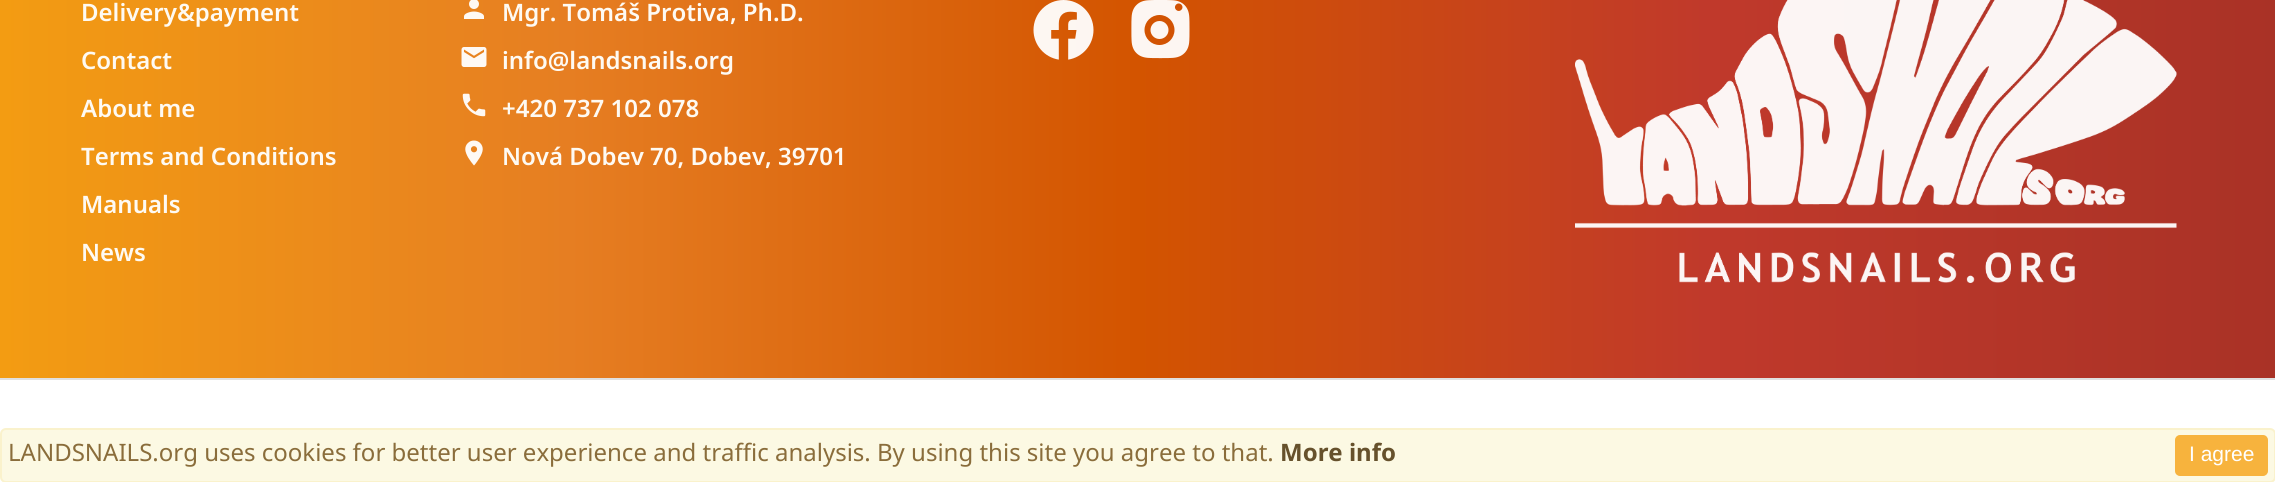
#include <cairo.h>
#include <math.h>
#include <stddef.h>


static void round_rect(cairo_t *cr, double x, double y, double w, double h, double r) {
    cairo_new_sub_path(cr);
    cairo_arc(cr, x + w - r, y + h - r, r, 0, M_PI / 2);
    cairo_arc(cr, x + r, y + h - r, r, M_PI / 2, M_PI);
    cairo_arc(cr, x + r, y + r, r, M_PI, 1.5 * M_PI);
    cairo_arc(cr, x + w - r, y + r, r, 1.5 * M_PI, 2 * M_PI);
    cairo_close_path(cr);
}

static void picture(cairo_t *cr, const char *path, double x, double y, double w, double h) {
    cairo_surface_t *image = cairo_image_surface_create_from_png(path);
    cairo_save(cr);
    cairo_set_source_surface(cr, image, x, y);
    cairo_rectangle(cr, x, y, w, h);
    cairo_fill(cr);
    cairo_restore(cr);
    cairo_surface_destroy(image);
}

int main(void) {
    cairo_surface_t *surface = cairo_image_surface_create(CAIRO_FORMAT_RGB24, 2275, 482);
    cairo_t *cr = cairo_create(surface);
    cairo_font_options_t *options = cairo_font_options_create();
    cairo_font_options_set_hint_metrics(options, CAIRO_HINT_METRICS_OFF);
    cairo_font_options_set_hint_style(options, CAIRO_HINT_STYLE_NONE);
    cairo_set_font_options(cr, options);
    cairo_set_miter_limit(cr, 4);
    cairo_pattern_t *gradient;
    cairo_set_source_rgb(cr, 1, 1, 1);
    cairo_paint(cr);
    gradient = cairo_pattern_create_linear(0, 124, 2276, 124);
    cairo_pattern_add_color_stop_rgba(gradient, 0, 0.953, 0.612, 0.071, 1);
    cairo_pattern_add_color_stop_rgba(gradient, 0.25, 0.902, 0.494, 0.133, 1);
    cairo_pattern_add_color_stop_rgba(gradient, 0.5, 0.827, 0.329, 0, 1);
    cairo_pattern_add_color_stop_rgba(gradient, 0.75, 0.753, 0.224, 0.169, 1);
    cairo_pattern_add_color_stop_rgba(gradient, 1, 0.663, 0.196, 0.149, 1);
    cairo_set_source(cr, gradient);
    cairo_pattern_destroy(gradient);
    cairo_rectangle(cr, 0, 0, 2275, 378);
    cairo_fill(cr);
    cairo_select_font_face(cr, "Noto Sans SemiBold", CAIRO_FONT_SLANT_NORMAL, CAIRO_FONT_WEIGHT_NORMAL);
    cairo_set_font_size(cr, 24);
    cairo_set_source_rgb(cr, 0.996, 0.98, 0.953);
    cairo_move_to(cr, 81, 21);
    cairo_show_text(cr, "Delivery&payment");
    cairo_move_to(cr, 81, 69);
    cairo_show_text(cr, "Contact");
    cairo_move_to(cr, 81, 117);
    cairo_show_text(cr, "About me");
    cairo_move_to(cr, 81, 165);
    cairo_show_text(cr, "Terms and Conditions");
    cairo_move_to(cr, 81, 213);
    cairo_show_text(cr, "Manuals");
    cairo_move_to(cr, 81, 261);
    cairo_show_text(cr, "News");
    picture(cr, "img1.png", 464, 0, 20, 19);
    cairo_move_to(cr, 502, 21);
    cairo_show_text(cr, "Mgr. Tomáš Protiva, Ph.D.");
    picture(cr, "img2.png", 461, 47, 26, 20);
    cairo_move_to(cr, 502, 69);
    cairo_show_text(cr, "info@landsnails.org");
    picture(cr, "img3.png", 462, 93, 24, 24);
    cairo_move_to(cr, 502, 117);
    cairo_show_text(cr, "+420 737 102 078");
    picture(cr, "img4.png", 465, 140, 18, 26);
    cairo_move_to(cr, 502, 165);
    cairo_show_text(cr, "Nová Dobev 70, Dobev, 39701");
    picture(cr, "img5.png", 1033, 0, 61, 60);
    picture(cr, "img6.png", 1131, 0, 59, 59);
    picture(cr, "img7.png", 1575, 0, 602, 283);
    cairo_set_source_rgb(cr, 0.878, 0.878, 0.878);
    cairo_rectangle(cr, 0, 378, 2275, 2);
    cairo_fill(cr);
    cairo_set_source_rgb(cr, 0.988, 0.973, 0.89);
    round_rect(cr, 1, 429, 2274, 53, 5);
    cairo_fill_preserve(cr);
    cairo_set_source_rgb(cr, 0.98, 0.949, 0.8);
    cairo_stroke(cr);
    cairo_select_font_face(cr, "Noto Sans", CAIRO_FONT_SLANT_NORMAL, CAIRO_FONT_WEIGHT_NORMAL);
    cairo_set_source_rgb(cr, 0.541, 0.427, 0.231);
    cairo_move_to(cr, 8, 461);
    cairo_show_text(cr, "LANDSNAILS.org uses cookies for better user experience and traffic analysis. By using this site you agree to that.");
    cairo_select_font_face(cr, "Noto Sans", CAIRO_FONT_SLANT_NORMAL, CAIRO_FONT_WEIGHT_BOLD);
    cairo_set_source_rgb(cr, 0.4, 0.318, 0.173);
    cairo_move_to(cr, 1280, 461);
    cairo_show_text(cr, "More info");
    cairo_set_source_rgb(cr, 0.965, 0.702, 0.239);
    round_rect(cr, 2176, 436, 91, 39, 4);
    cairo_fill_preserve(cr);
    cairo_stroke(cr);
    cairo_select_font_face(cr, "Liberation Sans", CAIRO_FONT_SLANT_NORMAL, CAIRO_FONT_WEIGHT_NORMAL);
    cairo_set_font_size(cr, 21);
    cairo_set_source_rgb(cr, 1, 1, 1);
    cairo_move_to(cr, 2189, 461);
    cairo_show_text(cr, "I agree");
    cairo_surface_write_to_png(surface, "page.png");
    cairo_font_options_destroy(options);
    cairo_destroy(cr);
    cairo_surface_destroy(surface);
    return 0;
}
